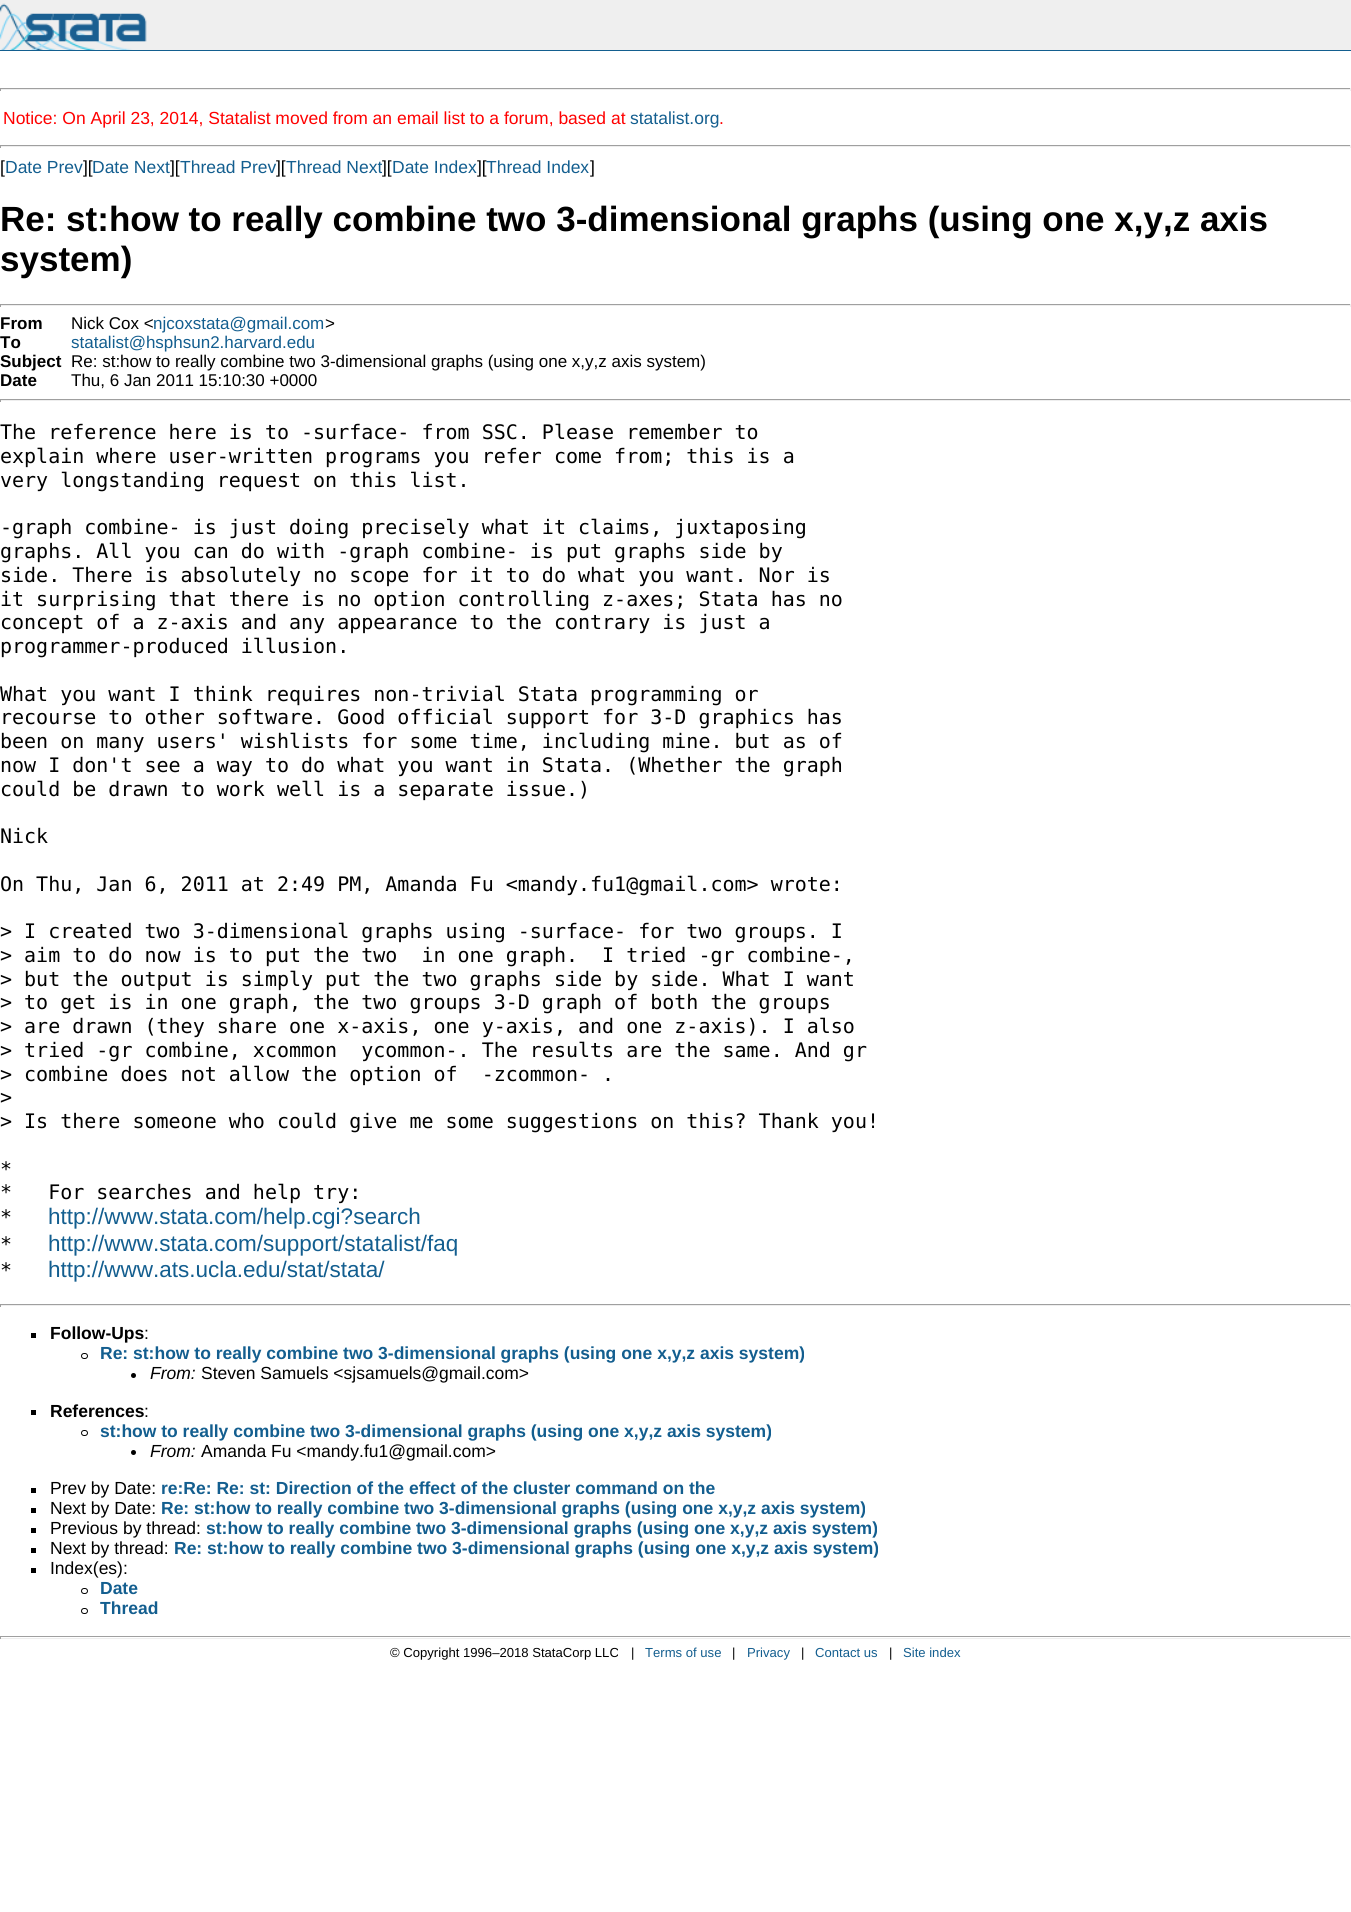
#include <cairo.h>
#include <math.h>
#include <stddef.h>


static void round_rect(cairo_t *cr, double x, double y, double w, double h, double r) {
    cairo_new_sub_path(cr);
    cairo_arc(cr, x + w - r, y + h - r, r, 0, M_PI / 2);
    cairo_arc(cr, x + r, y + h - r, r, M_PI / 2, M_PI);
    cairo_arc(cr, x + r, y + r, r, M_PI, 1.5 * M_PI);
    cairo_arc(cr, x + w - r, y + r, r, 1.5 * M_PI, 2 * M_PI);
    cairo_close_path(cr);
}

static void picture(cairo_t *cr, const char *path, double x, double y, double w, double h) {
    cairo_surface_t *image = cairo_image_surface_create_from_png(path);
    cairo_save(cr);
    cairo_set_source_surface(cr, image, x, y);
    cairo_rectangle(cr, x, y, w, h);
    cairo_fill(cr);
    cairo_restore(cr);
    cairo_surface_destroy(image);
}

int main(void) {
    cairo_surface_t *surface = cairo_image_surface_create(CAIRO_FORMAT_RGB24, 1351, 1912);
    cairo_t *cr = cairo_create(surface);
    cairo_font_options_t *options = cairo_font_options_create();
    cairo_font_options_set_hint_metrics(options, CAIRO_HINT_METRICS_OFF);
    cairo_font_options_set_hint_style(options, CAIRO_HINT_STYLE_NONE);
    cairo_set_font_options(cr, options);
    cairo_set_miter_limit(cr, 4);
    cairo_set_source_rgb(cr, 1, 1, 1);
    cairo_paint(cr);
    cairo_set_source_rgb(cr, 0.937, 0.937, 0.937);
    cairo_rectangle(cr, 0, 0, 1351, 50);
    cairo_fill(cr);
    cairo_set_source_rgb(cr, 0.078, 0.369, 0.561);
    cairo_rectangle(cr, 0, 50, 1351, 1);
    cairo_fill(cr);
    picture(cr, "img1.png", 0, 3, 147, 47);
    cairo_set_source_rgb(cr, 0.624, 0.624, 0.624);
    cairo_rectangle(cr, 0, 88, 1351, 1);
    cairo_fill(cr);
    cairo_set_source_rgb(cr, 0.933, 0.933, 0.933);
    cairo_rectangle(cr, 1350, 88, 1, 3);
    cairo_fill(cr);
    cairo_rectangle(cr, 0, 89, 1351, 1);
    cairo_fill(cr);
    cairo_set_source_rgb(cr, 0.624, 0.624, 0.624);
    cairo_rectangle(cr, 0, 88, 1, 3);
    cairo_fill(cr);
    cairo_select_font_face(cr, "Liberation Sans", CAIRO_FONT_SLANT_NORMAL, CAIRO_FONT_WEIGHT_NORMAL);
    cairo_set_font_size(cr, 17.5);
    cairo_set_source_rgb(cr, 1, 0, 0);
    cairo_move_to(cr, 3, 124);
    cairo_show_text(cr, "Notice: On April 23, 2014, Statalist moved from an email list to a forum, based at");
    cairo_set_source_rgb(cr, 0.078, 0.369, 0.561);
    cairo_move_to(cr, 630, 124);
    cairo_show_text(cr, "statalist.org");
    cairo_set_source_rgb(cr, 1, 0, 0);
    cairo_move_to(cr, 719, 124);
    cairo_show_text(cr, ".");
    cairo_set_source_rgb(cr, 0.624, 0.624, 0.624);
    cairo_rectangle(cr, 0, 145, 1351, 1);
    cairo_fill(cr);
    cairo_set_source_rgb(cr, 0.933, 0.933, 0.933);
    cairo_rectangle(cr, 1350, 145, 1, 3);
    cairo_fill(cr);
    cairo_rectangle(cr, 0, 146, 1351, 1);
    cairo_fill(cr);
    cairo_set_source_rgb(cr, 0.624, 0.624, 0.624);
    cairo_rectangle(cr, 0, 145, 1, 3);
    cairo_fill(cr);
    cairo_set_source_rgb(cr, 0, 0, 0);
    cairo_move_to(cr, 0, 173);
    cairo_show_text(cr, "[");
    cairo_set_source_rgb(cr, 0.078, 0.369, 0.561);
    cairo_move_to(cr, 5, 173);
    cairo_show_text(cr, "Date Prev");
    cairo_set_source_rgb(cr, 0, 0, 0);
    cairo_move_to(cr, 83, 173);
    cairo_show_text(cr, "][");
    cairo_set_source_rgb(cr, 0.078, 0.369, 0.561);
    cairo_move_to(cr, 92, 173);
    cairo_show_text(cr, "Date Next");
    cairo_set_source_rgb(cr, 0, 0, 0);
    cairo_move_to(cr, 170, 173);
    cairo_show_text(cr, "][");
    cairo_set_source_rgb(cr, 0.078, 0.369, 0.561);
    cairo_move_to(cr, 180, 173);
    cairo_show_text(cr, "Thread Prev");
    cairo_set_source_rgb(cr, 0, 0, 0);
    cairo_move_to(cr, 276, 173);
    cairo_show_text(cr, "][");
    cairo_set_source_rgb(cr, 0.078, 0.369, 0.561);
    cairo_move_to(cr, 286, 173);
    cairo_show_text(cr, "Thread Next");
    cairo_set_source_rgb(cr, 0, 0, 0);
    cairo_move_to(cr, 382, 173);
    cairo_show_text(cr, "][");
    cairo_set_source_rgb(cr, 0.078, 0.369, 0.561);
    cairo_move_to(cr, 392, 173);
    cairo_show_text(cr, "Date Index");
    cairo_set_source_rgb(cr, 0, 0, 0);
    cairo_move_to(cr, 477, 173);
    cairo_show_text(cr, "][");
    cairo_set_source_rgb(cr, 0.078, 0.369, 0.561);
    cairo_move_to(cr, 486, 173);
    cairo_show_text(cr, "Thread Index");
    cairo_set_source_rgb(cr, 0, 0, 0);
    cairo_move_to(cr, 590, 173);
    cairo_show_text(cr, "]");
    cairo_select_font_face(cr, "Liberation Sans", CAIRO_FONT_SLANT_NORMAL, CAIRO_FONT_WEIGHT_BOLD);
    cairo_set_font_size(cr, 35);
    cairo_move_to(cr, 0, 231);
    cairo_show_text(cr, "Re: st:how to really combine two 3-dimensional graphs (using one x,y,z axis");
    cairo_move_to(cr, 0, 271);
    cairo_show_text(cr, "system)");
    cairo_set_source_rgb(cr, 0.624, 0.624, 0.624);
    cairo_rectangle(cr, 0, 304, 1351, 1);
    cairo_fill(cr);
    cairo_set_source_rgb(cr, 0.933, 0.933, 0.933);
    cairo_rectangle(cr, 1350, 304, 1, 3);
    cairo_fill(cr);
    cairo_rectangle(cr, 0, 305, 1351, 1);
    cairo_fill(cr);
    cairo_set_source_rgb(cr, 0.624, 0.624, 0.624);
    cairo_rectangle(cr, 0, 304, 1, 3);
    cairo_fill(cr);
    cairo_set_font_size(cr, 17);
    cairo_set_source_rgb(cr, 0, 0, 0);
    cairo_move_to(cr, 0, 329);
    cairo_show_text(cr, "From");
    cairo_select_font_face(cr, "Liberation Sans", CAIRO_FONT_SLANT_NORMAL, CAIRO_FONT_WEIGHT_NORMAL);
    cairo_move_to(cr, 71, 329);
    cairo_show_text(cr, "Nick Cox <");
    cairo_set_source_rgb(cr, 0.078, 0.369, 0.561);
    cairo_move_to(cr, 153, 329);
    cairo_show_text(cr, "njcoxstata@gmail.com");
    cairo_set_source_rgb(cr, 0, 0, 0);
    cairo_move_to(cr, 325, 329);
    cairo_show_text(cr, ">");
    cairo_select_font_face(cr, "Liberation Sans", CAIRO_FONT_SLANT_NORMAL, CAIRO_FONT_WEIGHT_BOLD);
    cairo_move_to(cr, 0, 348);
    cairo_show_text(cr, "To");
    cairo_select_font_face(cr, "Liberation Sans", CAIRO_FONT_SLANT_NORMAL, CAIRO_FONT_WEIGHT_NORMAL);
    cairo_set_source_rgb(cr, 0.078, 0.369, 0.561);
    cairo_move_to(cr, 71, 348);
    cairo_show_text(cr, "statalist@hsphsun2.harvard.edu");
    cairo_select_font_face(cr, "Liberation Sans", CAIRO_FONT_SLANT_NORMAL, CAIRO_FONT_WEIGHT_BOLD);
    cairo_set_source_rgb(cr, 0, 0, 0);
    cairo_move_to(cr, 0, 367);
    cairo_show_text(cr, "Subject");
    cairo_select_font_face(cr, "Liberation Sans", CAIRO_FONT_SLANT_NORMAL, CAIRO_FONT_WEIGHT_NORMAL);
    cairo_move_to(cr, 71, 367);
    cairo_show_text(cr, "Re: st:how to really combine two 3-dimensional graphs (using one x,y,z axis system)");
    cairo_select_font_face(cr, "Liberation Sans", CAIRO_FONT_SLANT_NORMAL, CAIRO_FONT_WEIGHT_BOLD);
    cairo_move_to(cr, 0, 386);
    cairo_show_text(cr, "Date");
    cairo_select_font_face(cr, "Liberation Sans", CAIRO_FONT_SLANT_NORMAL, CAIRO_FONT_WEIGHT_NORMAL);
    cairo_move_to(cr, 71, 386);
    cairo_show_text(cr, "Thu, 6 Jan 2011 15:10:30 +0000");
    cairo_set_source_rgb(cr, 0.624, 0.624, 0.624);
    cairo_rectangle(cr, 0, 399, 1351, 1);
    cairo_fill(cr);
    cairo_set_source_rgb(cr, 0.933, 0.933, 0.933);
    cairo_rectangle(cr, 1350, 399, 1, 3);
    cairo_fill(cr);
    cairo_rectangle(cr, 0, 400, 1351, 1);
    cairo_fill(cr);
    cairo_set_source_rgb(cr, 0.624, 0.624, 0.624);
    cairo_rectangle(cr, 0, 399, 1, 3);
    cairo_fill(cr);
    cairo_select_font_face(cr, "DejaVu Sans Mono", CAIRO_FONT_SLANT_NORMAL, CAIRO_FONT_WEIGHT_NORMAL);
    cairo_set_font_size(cr, 20);
    cairo_set_source_rgb(cr, 0, 0, 0);
    cairo_move_to(cr, 0, 439);
    cairo_show_text(cr, "The reference here is to -surface- from SSC. Please remember to");
    cairo_move_to(cr, 0, 463);
    cairo_show_text(cr, "explain where user-written programs you refer come from; this is a");
    cairo_move_to(cr, 0, 487);
    cairo_show_text(cr, "very longstanding request on this list.");
    cairo_move_to(cr, 0, 534);
    cairo_show_text(cr, "-graph combine- is just doing precisely what it claims, juxtaposing");
    cairo_move_to(cr, 0, 558);
    cairo_show_text(cr, "graphs. All you can do with -graph combine- is put graphs side by");
    cairo_move_to(cr, 0, 582);
    cairo_show_text(cr, "side. There is absolutely no scope for it to do what you want. Nor is");
    cairo_move_to(cr, 0, 606);
    cairo_show_text(cr, "it surprising that there is no option controlling z-axes; Stata has no");
    cairo_move_to(cr, 0, 629);
    cairo_show_text(cr, "concept of a z-axis and any appearance to the contrary is just a");
    cairo_move_to(cr, 0, 653);
    cairo_show_text(cr, "programmer-produced illusion.");
    cairo_move_to(cr, 0, 701);
    cairo_show_text(cr, "What you want I think requires non-trivial Stata programming or");
    cairo_move_to(cr, 0, 724);
    cairo_show_text(cr, "recourse to other software. Good official support for 3-D graphics has");
    cairo_move_to(cr, 0, 748);
    cairo_show_text(cr, "been on many users' wishlists for some time, including mine. but as of");
    cairo_move_to(cr, 0, 772);
    cairo_show_text(cr, "now I don't see a way to do what you want in Stata. (Whether the graph");
    cairo_move_to(cr, 0, 796);
    cairo_show_text(cr, "could be drawn to work well is a separate issue.)");
    cairo_move_to(cr, 0, 843);
    cairo_show_text(cr, "Nick");
    cairo_move_to(cr, 0, 891);
    cairo_show_text(cr, "On Thu, Jan 6, 2011 at 2:49 PM, Amanda Fu <mandy.fu1@gmail.com> wrote:");
    cairo_move_to(cr, 0, 938);
    cairo_show_text(cr, "> I created two 3-dimensional graphs using -surface- for two groups. I");
    cairo_move_to(cr, 0, 962);
    cairo_show_text(cr, "> aim to do now is to put the two  in one graph.  I tried -gr combine-,");
    cairo_move_to(cr, 0, 986);
    cairo_show_text(cr, "> but the output is simply put the two graphs side by side. What I want");
    cairo_move_to(cr, 0, 1009);
    cairo_show_text(cr, "> to get is in one graph, the two groups 3-D graph of both the groups");
    cairo_move_to(cr, 0, 1033);
    cairo_show_text(cr, "> are drawn (they share one x-axis, one y-axis, and one z-axis). I also");
    cairo_move_to(cr, 0, 1057);
    cairo_show_text(cr, "> tried -gr combine, xcommon  ycommon-. The results are the same. And gr");
    cairo_move_to(cr, 0, 1081);
    cairo_show_text(cr, "> combine does not allow the option of  -zcommon- .");
    cairo_move_to(cr, 0, 1104);
    cairo_show_text(cr, ">");
    cairo_move_to(cr, 0, 1128);
    cairo_show_text(cr, "> Is there someone who could give me some suggestions on this? Thank you!");
    cairo_move_to(cr, 0, 1176);
    cairo_show_text(cr, "*");
    cairo_move_to(cr, 0, 1199);
    cairo_show_text(cr, "*   For searches and help try:");
    cairo_move_to(cr, 0, 1224);
    cairo_show_text(cr, "*");
    cairo_select_font_face(cr, "Liberation Sans", CAIRO_FONT_SLANT_NORMAL, CAIRO_FONT_WEIGHT_NORMAL);
    cairo_set_font_size(cr, 22.5);
    cairo_set_source_rgb(cr, 0.078, 0.369, 0.561);
    cairo_move_to(cr, 48, 1224);
    cairo_show_text(cr, "http://www.stata.com/help.cgi?search");
    cairo_select_font_face(cr, "DejaVu Sans Mono", CAIRO_FONT_SLANT_NORMAL, CAIRO_FONT_WEIGHT_NORMAL);
    cairo_set_font_size(cr, 20);
    cairo_set_source_rgb(cr, 0, 0, 0);
    cairo_move_to(cr, 0, 1251);
    cairo_show_text(cr, "*");
    cairo_select_font_face(cr, "Liberation Sans", CAIRO_FONT_SLANT_NORMAL, CAIRO_FONT_WEIGHT_NORMAL);
    cairo_set_font_size(cr, 22.5);
    cairo_set_source_rgb(cr, 0.078, 0.369, 0.561);
    cairo_move_to(cr, 48, 1251);
    cairo_show_text(cr, "http://www.stata.com/support/statalist/faq");
    cairo_select_font_face(cr, "DejaVu Sans Mono", CAIRO_FONT_SLANT_NORMAL, CAIRO_FONT_WEIGHT_NORMAL);
    cairo_set_font_size(cr, 20);
    cairo_set_source_rgb(cr, 0, 0, 0);
    cairo_move_to(cr, 0, 1277);
    cairo_show_text(cr, "*");
    cairo_select_font_face(cr, "Liberation Sans", CAIRO_FONT_SLANT_NORMAL, CAIRO_FONT_WEIGHT_NORMAL);
    cairo_set_font_size(cr, 22.5);
    cairo_set_source_rgb(cr, 0.078, 0.369, 0.561);
    cairo_move_to(cr, 48, 1277);
    cairo_show_text(cr, "http://www.ats.ucla.edu/stat/stata/");
    cairo_set_source_rgb(cr, 0.624, 0.624, 0.624);
    cairo_rectangle(cr, 0, 1304, 1351, 1);
    cairo_fill(cr);
    cairo_set_source_rgb(cr, 0.933, 0.933, 0.933);
    cairo_rectangle(cr, 1350, 1304, 1, 3);
    cairo_fill(cr);
    cairo_rectangle(cr, 0, 1305, 1351, 1);
    cairo_fill(cr);
    cairo_set_source_rgb(cr, 0.624, 0.624, 0.624);
    cairo_rectangle(cr, 0, 1304, 1, 3);
    cairo_fill(cr);
    cairo_set_source_rgb(cr, 0, 0, 0);
    cairo_rectangle(cr, 31, 1333, 5, 5);
    cairo_fill(cr);
    cairo_select_font_face(cr, "Liberation Sans", CAIRO_FONT_SLANT_NORMAL, CAIRO_FONT_WEIGHT_BOLD);
    cairo_set_font_size(cr, 17.5);
    cairo_move_to(cr, 50, 1339);
    cairo_show_text(cr, "Follow-Ups");
    cairo_select_font_face(cr, "Liberation Sans", CAIRO_FONT_SLANT_NORMAL, CAIRO_FONT_WEIGHT_NORMAL);
    cairo_move_to(cr, 144, 1339);
    cairo_show_text(cr, ":");
    round_rect(cr, 81.5, 1353.5, 6, 5, 2.5);
    cairo_set_line_width(cr, 1);
    cairo_stroke(cr);
    cairo_select_font_face(cr, "Liberation Sans", CAIRO_FONT_SLANT_NORMAL, CAIRO_FONT_WEIGHT_BOLD);
    cairo_set_source_rgb(cr, 0.078, 0.369, 0.561);
    cairo_move_to(cr, 100, 1359);
    cairo_show_text(cr, "Re: st:how to really combine two 3-dimensional graphs (using one x,y,z axis system)");
    cairo_set_source_rgb(cr, 0, 0, 0);
    cairo_new_path(cr);
    cairo_arc(cr, 133.5, 1375.5, 2.5, 0, 2 * M_PI);
    cairo_fill(cr);
    cairo_select_font_face(cr, "Liberation Sans", CAIRO_FONT_SLANT_ITALIC, CAIRO_FONT_WEIGHT_NORMAL);
    cairo_move_to(cr, 150, 1379);
    cairo_show_text(cr, "From:");
    cairo_select_font_face(cr, "Liberation Sans", CAIRO_FONT_SLANT_NORMAL, CAIRO_FONT_WEIGHT_NORMAL);
    cairo_move_to(cr, 201, 1379);
    cairo_show_text(cr, "Steven Samuels <sjsamuels@gmail.com>");
    cairo_rectangle(cr, 31, 1410, 5, 5);
    cairo_fill(cr);
    cairo_select_font_face(cr, "Liberation Sans", CAIRO_FONT_SLANT_NORMAL, CAIRO_FONT_WEIGHT_BOLD);
    cairo_move_to(cr, 50, 1417);
    cairo_show_text(cr, "References");
    cairo_select_font_face(cr, "Liberation Sans", CAIRO_FONT_SLANT_NORMAL, CAIRO_FONT_WEIGHT_NORMAL);
    cairo_move_to(cr, 144, 1417);
    cairo_show_text(cr, ":");
    round_rect(cr, 81.5, 1430.5, 6, 5, 2.5);
    cairo_stroke(cr);
    cairo_select_font_face(cr, "Liberation Sans", CAIRO_FONT_SLANT_NORMAL, CAIRO_FONT_WEIGHT_BOLD);
    cairo_set_source_rgb(cr, 0.078, 0.369, 0.561);
    cairo_move_to(cr, 100, 1437);
    cairo_show_text(cr, "st:how to really combine two 3-dimensional graphs (using one x,y,z axis system)");
    cairo_set_source_rgb(cr, 0, 0, 0);
    cairo_new_path(cr);
    cairo_arc(cr, 133.5, 1452.5, 2.5, 0, 2 * M_PI);
    cairo_fill(cr);
    cairo_select_font_face(cr, "Liberation Sans", CAIRO_FONT_SLANT_ITALIC, CAIRO_FONT_WEIGHT_NORMAL);
    cairo_move_to(cr, 150, 1457);
    cairo_show_text(cr, "From:");
    cairo_select_font_face(cr, "Liberation Sans", CAIRO_FONT_SLANT_NORMAL, CAIRO_FONT_WEIGHT_NORMAL);
    cairo_move_to(cr, 201, 1457);
    cairo_show_text(cr, "Amanda Fu <mandy.fu1@gmail.com>");
    cairo_rectangle(cr, 31, 1488, 5, 5);
    cairo_fill(cr);
    cairo_move_to(cr, 50, 1494);
    cairo_show_text(cr, "Prev by Date:");
    cairo_select_font_face(cr, "Liberation Sans", CAIRO_FONT_SLANT_NORMAL, CAIRO_FONT_WEIGHT_BOLD);
    cairo_set_source_rgb(cr, 0.078, 0.369, 0.561);
    cairo_move_to(cr, 161, 1494);
    cairo_show_text(cr, "re:Re: Re: st: Direction of the effect of the cluster command on the");
    cairo_set_source_rgb(cr, 0, 0, 0);
    cairo_rectangle(cr, 31, 1508, 5, 5);
    cairo_fill(cr);
    cairo_select_font_face(cr, "Liberation Sans", CAIRO_FONT_SLANT_NORMAL, CAIRO_FONT_WEIGHT_NORMAL);
    cairo_move_to(cr, 50, 1514);
    cairo_show_text(cr, "Next by Date:");
    cairo_select_font_face(cr, "Liberation Sans", CAIRO_FONT_SLANT_NORMAL, CAIRO_FONT_WEIGHT_BOLD);
    cairo_set_source_rgb(cr, 0.078, 0.369, 0.561);
    cairo_move_to(cr, 161, 1514);
    cairo_show_text(cr, "Re: st:how to really combine two 3-dimensional graphs (using one x,y,z axis system)");
    cairo_set_source_rgb(cr, 0, 0, 0);
    cairo_rectangle(cr, 31, 1528, 5, 5);
    cairo_fill(cr);
    cairo_select_font_face(cr, "Liberation Sans", CAIRO_FONT_SLANT_NORMAL, CAIRO_FONT_WEIGHT_NORMAL);
    cairo_move_to(cr, 50, 1534);
    cairo_show_text(cr, "Previous by thread:");
    cairo_select_font_face(cr, "Liberation Sans", CAIRO_FONT_SLANT_NORMAL, CAIRO_FONT_WEIGHT_BOLD);
    cairo_set_source_rgb(cr, 0.078, 0.369, 0.561);
    cairo_move_to(cr, 206, 1534);
    cairo_show_text(cr, "st:how to really combine two 3-dimensional graphs (using one x,y,z axis system)");
    cairo_set_source_rgb(cr, 0, 0, 0);
    cairo_rectangle(cr, 31, 1548, 5, 5);
    cairo_fill(cr);
    cairo_select_font_face(cr, "Liberation Sans", CAIRO_FONT_SLANT_NORMAL, CAIRO_FONT_WEIGHT_NORMAL);
    cairo_move_to(cr, 50, 1554);
    cairo_show_text(cr, "Next by thread:");
    cairo_select_font_face(cr, "Liberation Sans", CAIRO_FONT_SLANT_NORMAL, CAIRO_FONT_WEIGHT_BOLD);
    cairo_set_source_rgb(cr, 0.078, 0.369, 0.561);
    cairo_move_to(cr, 174, 1554);
    cairo_show_text(cr, "Re: st:how to really combine two 3-dimensional graphs (using one x,y,z axis system)");
    cairo_set_source_rgb(cr, 0, 0, 0);
    cairo_rectangle(cr, 31, 1568, 5, 5);
    cairo_fill(cr);
    cairo_select_font_face(cr, "Liberation Sans", CAIRO_FONT_SLANT_NORMAL, CAIRO_FONT_WEIGHT_NORMAL);
    cairo_move_to(cr, 50, 1574);
    cairo_show_text(cr, "Index(es):");
    round_rect(cr, 81.5, 1588.5, 6, 5, 2.5);
    cairo_stroke(cr);
    cairo_select_font_face(cr, "Liberation Sans", CAIRO_FONT_SLANT_NORMAL, CAIRO_FONT_WEIGHT_BOLD);
    cairo_set_source_rgb(cr, 0.078, 0.369, 0.561);
    cairo_move_to(cr, 100, 1594);
    cairo_show_text(cr, "Date");
    round_rect(cr, 81.5, 1608.5, 6, 5, 2.5);
    cairo_set_source_rgb(cr, 0, 0, 0);
    cairo_stroke(cr);
    cairo_set_source_rgb(cr, 0.078, 0.369, 0.561);
    cairo_move_to(cr, 100, 1614);
    cairo_show_text(cr, "Thread");
    cairo_set_source_rgb(cr, 0.624, 0.624, 0.624);
    cairo_rectangle(cr, 0, 1636, 1351, 1);
    cairo_fill(cr);
    cairo_set_source_rgb(cr, 0.933, 0.933, 0.933);
    cairo_rectangle(cr, 1350, 1636, 1, 3);
    cairo_fill(cr);
    cairo_rectangle(cr, 0, 1638, 1351, 1);
    cairo_fill(cr);
    cairo_set_source_rgb(cr, 0.624, 0.624, 0.624);
    cairo_rectangle(cr, 0, 1636, 1, 3);
    cairo_fill(cr);
    cairo_select_font_face(cr, "Liberation Sans", CAIRO_FONT_SLANT_NORMAL, CAIRO_FONT_WEIGHT_NORMAL);
    cairo_set_font_size(cr, 13.1);
    cairo_set_source_rgb(cr, 0, 0, 0);
    cairo_move_to(cr, 390, 1657);
    cairo_show_text(cr, "© Copyright 1996–2018 StataCorp LLC");
    cairo_move_to(cr, 631, 1657);
    cairo_show_text(cr, "|");
    cairo_set_source_rgb(cr, 0.078, 0.369, 0.561);
    cairo_move_to(cr, 645, 1657);
    cairo_show_text(cr, "Terms of use");
    cairo_set_source_rgb(cr, 0, 0, 0);
    cairo_move_to(cr, 732, 1657);
    cairo_show_text(cr, "|");
    cairo_set_source_rgb(cr, 0.078, 0.369, 0.561);
    cairo_move_to(cr, 747, 1657);
    cairo_show_text(cr, "Privacy");
    cairo_set_source_rgb(cr, 0, 0, 0);
    cairo_move_to(cr, 801, 1657);
    cairo_show_text(cr, "|");
    cairo_set_source_rgb(cr, 0.078, 0.369, 0.561);
    cairo_move_to(cr, 815, 1657);
    cairo_show_text(cr, "Contact us");
    cairo_set_source_rgb(cr, 0, 0, 0);
    cairo_move_to(cr, 889, 1657);
    cairo_show_text(cr, "|");
    cairo_set_source_rgb(cr, 0.078, 0.369, 0.561);
    cairo_move_to(cr, 903, 1657);
    cairo_show_text(cr, "Site index");
    cairo_surface_write_to_png(surface, "page.png");
    cairo_font_options_destroy(options);
    cairo_destroy(cr);
    cairo_surface_destroy(surface);
    return 0;
}
